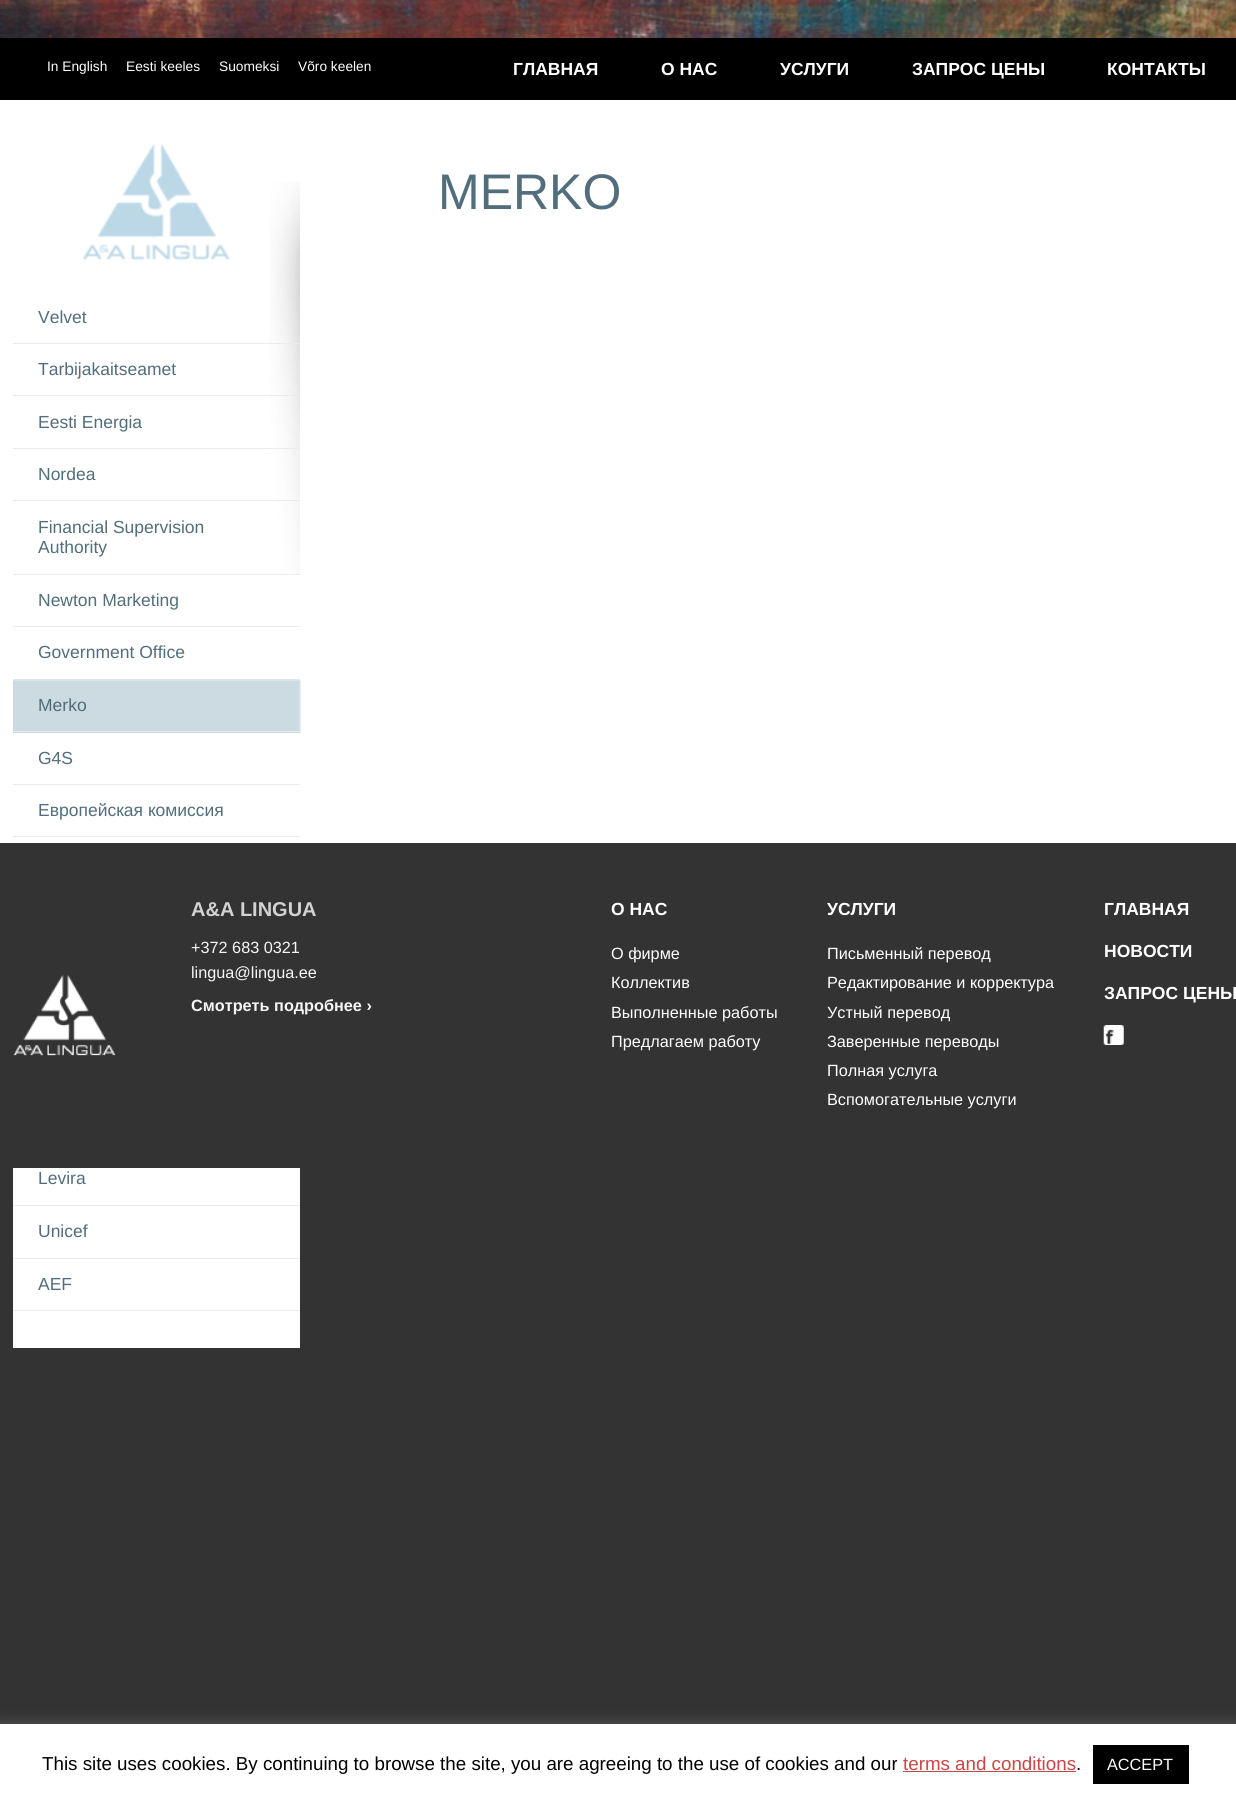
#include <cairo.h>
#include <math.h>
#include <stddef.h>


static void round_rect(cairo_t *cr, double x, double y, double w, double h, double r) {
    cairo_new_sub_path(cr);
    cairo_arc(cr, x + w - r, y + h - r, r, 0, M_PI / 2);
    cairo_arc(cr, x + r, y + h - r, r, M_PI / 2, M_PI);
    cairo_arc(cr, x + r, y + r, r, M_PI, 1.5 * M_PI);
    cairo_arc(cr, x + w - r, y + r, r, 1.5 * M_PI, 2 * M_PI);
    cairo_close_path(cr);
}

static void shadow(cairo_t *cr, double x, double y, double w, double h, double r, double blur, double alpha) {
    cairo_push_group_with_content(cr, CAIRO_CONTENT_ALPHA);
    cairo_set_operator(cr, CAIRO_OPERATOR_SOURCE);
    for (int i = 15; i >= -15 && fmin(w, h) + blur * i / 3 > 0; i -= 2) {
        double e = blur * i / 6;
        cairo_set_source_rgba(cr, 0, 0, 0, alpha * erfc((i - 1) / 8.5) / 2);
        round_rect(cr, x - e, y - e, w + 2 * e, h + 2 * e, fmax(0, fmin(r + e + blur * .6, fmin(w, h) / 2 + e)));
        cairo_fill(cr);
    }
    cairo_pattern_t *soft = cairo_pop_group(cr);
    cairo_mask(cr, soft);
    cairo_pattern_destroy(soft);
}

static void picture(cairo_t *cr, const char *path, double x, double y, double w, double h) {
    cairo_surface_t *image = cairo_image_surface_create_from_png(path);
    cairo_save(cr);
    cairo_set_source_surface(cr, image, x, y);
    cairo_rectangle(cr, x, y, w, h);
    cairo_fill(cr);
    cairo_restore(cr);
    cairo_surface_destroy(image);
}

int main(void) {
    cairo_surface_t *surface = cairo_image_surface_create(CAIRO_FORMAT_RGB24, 1236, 1805);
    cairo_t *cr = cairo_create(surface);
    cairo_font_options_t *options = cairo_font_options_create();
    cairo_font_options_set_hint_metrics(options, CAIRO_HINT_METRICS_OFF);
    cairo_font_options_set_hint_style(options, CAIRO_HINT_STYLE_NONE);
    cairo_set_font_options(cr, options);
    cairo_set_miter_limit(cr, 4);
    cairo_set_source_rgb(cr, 0.2, 0.2, 0.2);
    cairo_paint(cr);
    picture(cr, "img1.png", 0, 0, 1236, 38);
    cairo_set_source_rgb(cr, 0, 0, 0);
    cairo_rectangle(cr, 0, 38, 1236, 62);
    cairo_fill(cr);
    cairo_select_font_face(cr, "Liberation Sans", CAIRO_FONT_SLANT_NORMAL, CAIRO_FONT_WEIGHT_NORMAL);
    cairo_set_font_size(cr, 13.75);
    cairo_set_source_rgb(cr, 1, 1, 1);
    cairo_move_to(cr, 47, 71);
    cairo_show_text(cr, "In English");
    cairo_move_to(cr, 126, 71);
    cairo_show_text(cr, "Eesti keeles");
    cairo_move_to(cr, 219, 71);
    cairo_show_text(cr, "Suomeksi");
    cairo_move_to(cr, 298, 71);
    cairo_show_text(cr, "Võro keelen");
    cairo_select_font_face(cr, "Liberation Sans", CAIRO_FONT_SLANT_NORMAL, CAIRO_FONT_WEIGHT_BOLD);
    cairo_set_font_size(cr, 17.5);
    cairo_move_to(cr, 513, 75);
    cairo_show_text(cr, "ГЛАВНАЯ");
    cairo_move_to(cr, 661, 75);
    cairo_show_text(cr, "О НАС");
    cairo_move_to(cr, 780, 75);
    cairo_show_text(cr, "УСЛУГИ");
    cairo_move_to(cr, 912, 75);
    cairo_show_text(cr, "ЗАПРОС ЦЕНЫ");
    cairo_move_to(cr, 1107, 75);
    cairo_show_text(cr, "КОНТАКТЫ");
    cairo_rectangle(cr, 0, 100, 1236, 743);
    cairo_fill(cr);
    cairo_select_font_face(cr, "Liberation Sans", CAIRO_FONT_SLANT_NORMAL, CAIRO_FONT_WEIGHT_NORMAL);
    cairo_set_font_size(cr, 50);
    cairo_set_source_rgb(cr, 0.322, 0.427, 0.482);
    cairo_move_to(cr, 438, 209);
    cairo_show_text(cr, "MERKO");
    cairo_set_source_rgb(cr, 1, 1, 1);
    cairo_rectangle(cr, 13, 843, 287, 505);
    cairo_fill(cr);
    picture(cr, "img2.png", 270, 181, 30, 393);
    picture(cr, "img3.png", 83, 144, 147, 117);
    cairo_set_source_rgb(cr, 0.918, 0.918, 0.918);
    cairo_rectangle(cr, 13, 343, 287, 1);
    cairo_fill(cr);
    cairo_set_font_size(cr, 17.5);
    cairo_set_source_rgb(cr, 0.322, 0.427, 0.482);
    cairo_move_to(cr, 38, 323);
    cairo_show_text(cr, "Velvet");
    cairo_set_source_rgb(cr, 0.918, 0.918, 0.918);
    cairo_rectangle(cr, 13, 395, 287, 1);
    cairo_fill(cr);
    cairo_set_source_rgb(cr, 0.322, 0.427, 0.482);
    cairo_move_to(cr, 38, 375);
    cairo_show_text(cr, "Tarbijakaitseamet");
    cairo_set_source_rgb(cr, 0.918, 0.918, 0.918);
    cairo_rectangle(cr, 13, 448, 287, 1);
    cairo_fill(cr);
    cairo_set_source_rgb(cr, 0.322, 0.427, 0.482);
    cairo_move_to(cr, 38, 428);
    cairo_show_text(cr, "Eesti Energia");
    cairo_set_source_rgb(cr, 0.918, 0.918, 0.918);
    cairo_rectangle(cr, 13, 500, 287, 1);
    cairo_fill(cr);
    cairo_set_source_rgb(cr, 0.322, 0.427, 0.482);
    cairo_move_to(cr, 38, 480);
    cairo_show_text(cr, "Nordea");
    cairo_set_source_rgb(cr, 0.918, 0.918, 0.918);
    cairo_rectangle(cr, 13, 574, 287, 1);
    cairo_fill(cr);
    cairo_set_source_rgb(cr, 0.322, 0.427, 0.482);
    cairo_move_to(cr, 38, 533);
    cairo_show_text(cr, "Financial Supervision");
    cairo_move_to(cr, 38, 553);
    cairo_show_text(cr, "Authority");
    cairo_set_source_rgb(cr, 0.918, 0.918, 0.918);
    cairo_rectangle(cr, 13, 626, 287, 1);
    cairo_fill(cr);
    cairo_set_source_rgb(cr, 0.322, 0.427, 0.482);
    cairo_move_to(cr, 38, 606);
    cairo_show_text(cr, "Newton Marketing");
    cairo_set_source_rgb(cr, 0.918, 0.918, 0.918);
    cairo_rectangle(cr, 13, 679, 287, 1);
    cairo_fill(cr);
    cairo_set_source_rgb(cr, 0.322, 0.427, 0.482);
    cairo_move_to(cr, 38, 658);
    cairo_show_text(cr, "Government Office");
    picture(cr, "img4.png", 13, 679, 288, 54);
    cairo_set_source_rgb(cr, 0.918, 0.918, 0.918);
    cairo_rectangle(cr, 13, 731, 287, 1);
    cairo_fill(cr);
    cairo_set_source_rgb(cr, 0.322, 0.427, 0.482);
    cairo_move_to(cr, 38, 711);
    cairo_show_text(cr, "Merko");
    cairo_set_source_rgb(cr, 0.918, 0.918, 0.918);
    cairo_rectangle(cr, 13, 784, 287, 1);
    cairo_fill(cr);
    cairo_set_source_rgb(cr, 0.322, 0.427, 0.482);
    cairo_move_to(cr, 38, 764);
    cairo_show_text(cr, "G4S");
    cairo_set_source_rgb(cr, 0.918, 0.918, 0.918);
    cairo_rectangle(cr, 13, 836, 287, 1);
    cairo_fill(cr);
    cairo_set_source_rgb(cr, 0.322, 0.427, 0.482);
    cairo_move_to(cr, 38, 816);
    cairo_show_text(cr, "Европейская комиссия");
    cairo_set_source_rgb(cr, 0.918, 0.918, 0.918);
    cairo_rectangle(cr, 13, 1205, 287, 1);
    cairo_fill(cr);
    cairo_set_source_rgb(cr, 0.322, 0.427, 0.482);
    cairo_move_to(cr, 38, 1184);
    cairo_show_text(cr, "Levira");
    cairo_set_source_rgb(cr, 0.918, 0.918, 0.918);
    cairo_rectangle(cr, 13, 1258, 287, 1);
    cairo_fill(cr);
    cairo_set_source_rgb(cr, 0.322, 0.427, 0.482);
    cairo_move_to(cr, 38, 1237);
    cairo_show_text(cr, "Unicef");
    cairo_set_source_rgb(cr, 0.918, 0.918, 0.918);
    cairo_rectangle(cr, 13, 1310, 287, 1);
    cairo_fill(cr);
    cairo_set_source_rgb(cr, 0.322, 0.427, 0.482);
    cairo_move_to(cr, 38, 1290);
    cairo_show_text(cr, "AEF");
    cairo_set_source_rgb(cr, 0.2, 0.2, 0.2);
    cairo_rectangle(cr, 13, 843, 287, 325);
    cairo_fill(cr);
    picture(cr, "img5.png", 13, 975, 103, 81);
    cairo_select_font_face(cr, "Liberation Sans", CAIRO_FONT_SLANT_NORMAL, CAIRO_FONT_WEIGHT_BOLD);
    cairo_set_font_size(cr, 20);
    cairo_set_source_rgb(cr, 0.824, 0.824, 0.824);
    cairo_move_to(cr, 191, 916);
    cairo_show_text(cr, "A&A LINGUA");
    cairo_select_font_face(cr, "Liberation Sans", CAIRO_FONT_SLANT_NORMAL, CAIRO_FONT_WEIGHT_NORMAL);
    cairo_set_font_size(cr, 16.25);
    cairo_set_source_rgb(cr, 0.961, 0.961, 0.961);
    cairo_move_to(cr, 191, 953);
    cairo_show_text(cr, "+372 683 0321");
    cairo_move_to(cr, 191, 978);
    cairo_show_text(cr, "lingua@lingua.ee");
    cairo_select_font_face(cr, "Liberation Sans", CAIRO_FONT_SLANT_NORMAL, CAIRO_FONT_WEIGHT_BOLD);
    cairo_move_to(cr, 191, 1011);
    cairo_show_text(cr, "Смотреть подробнее ›");
    cairo_set_font_size(cr, 17.5);
    cairo_set_source_rgb(cr, 1, 1, 1);
    cairo_move_to(cr, 611, 915);
    cairo_show_text(cr, "О НАС");
    cairo_select_font_face(cr, "Liberation Sans", CAIRO_FONT_SLANT_NORMAL, CAIRO_FONT_WEIGHT_NORMAL);
    cairo_set_font_size(cr, 16.25);
    cairo_move_to(cr, 611, 959);
    cairo_show_text(cr, "О фирме");
    cairo_move_to(cr, 611, 988);
    cairo_show_text(cr, "Коллектив");
    cairo_move_to(cr, 611, 1018);
    cairo_show_text(cr, "Выполненные работы");
    cairo_move_to(cr, 611, 1047);
    cairo_show_text(cr, "Предлагаем работу");
    cairo_select_font_face(cr, "Liberation Sans", CAIRO_FONT_SLANT_NORMAL, CAIRO_FONT_WEIGHT_BOLD);
    cairo_set_font_size(cr, 17.5);
    cairo_move_to(cr, 827, 915);
    cairo_show_text(cr, "УСЛУГИ");
    cairo_select_font_face(cr, "Liberation Sans", CAIRO_FONT_SLANT_NORMAL, CAIRO_FONT_WEIGHT_NORMAL);
    cairo_set_font_size(cr, 16.25);
    cairo_move_to(cr, 827, 959);
    cairo_show_text(cr, "Письменный перевод");
    cairo_move_to(cr, 827, 988);
    cairo_show_text(cr, "Редактирование и корректура");
    cairo_move_to(cr, 827, 1018);
    cairo_show_text(cr, "Устный перевод");
    cairo_move_to(cr, 827, 1047);
    cairo_show_text(cr, "Заверенные переводы");
    cairo_move_to(cr, 827, 1076);
    cairo_show_text(cr, "Полная услуга");
    cairo_move_to(cr, 827, 1105);
    cairo_show_text(cr, "Вспомогательные услуги");
    cairo_select_font_face(cr, "Liberation Sans", CAIRO_FONT_SLANT_NORMAL, CAIRO_FONT_WEIGHT_BOLD);
    cairo_set_font_size(cr, 17.5);
    cairo_move_to(cr, 1104, 915);
    cairo_show_text(cr, "ГЛАВНАЯ");
    cairo_move_to(cr, 1104, 957);
    cairo_show_text(cr, "НОВОСТИ");
    cairo_move_to(cr, 1104, 999);
    cairo_show_text(cr, "ЗАПРОС ЦЕНЫ");
    picture(cr, "img6.png", 1103, 1025, 21, 20);
    cairo_set_source_rgb(cr, 0.675, 0.671, 0.671);
    shadow(cr, 0, 1723, 1236, 81, 0, 6, 0.3);
    cairo_set_source_rgb(cr, 1, 1, 1);
    cairo_rectangle(cr, 0, 1724, 1236, 81);
    cairo_fill(cr);
    cairo_select_font_face(cr, "Liberation Sans", CAIRO_FONT_SLANT_NORMAL, CAIRO_FONT_WEIGHT_NORMAL);
    cairo_set_font_size(cr, 18.75);
    cairo_set_source_rgb(cr, 0, 0, 0);
    cairo_move_to(cr, 42, 1770);
    cairo_show_text(cr, "This site uses cookies. By continuing to browse the site, you are agreeing to the use of cookies and our");
    cairo_set_source_rgb(cr, 0.796, 0.271, 0.271);
    cairo_move_to(cr, 903, 1770);
    cairo_show_text(cr, "terms and conditions");
    cairo_rectangle(cr, 903, 1771, 173, 1);
    cairo_fill(cr);
    cairo_set_source_rgb(cr, 0, 0, 0);
    cairo_move_to(cr, 1076, 1770);
    cairo_show_text(cr, ".");
    cairo_rectangle(cr, 1093, 1745, 96, 39);
    cairo_fill(cr);
    cairo_set_font_size(cr, 16.25);
    cairo_set_source_rgb(cr, 1, 1, 1);
    cairo_move_to(cr, 1107, 1770);
    cairo_show_text(cr, "ACCEPT");
    cairo_surface_write_to_png(surface, "page.png");
    cairo_font_options_destroy(options);
    cairo_destroy(cr);
    cairo_surface_destroy(surface);
    return 0;
}
